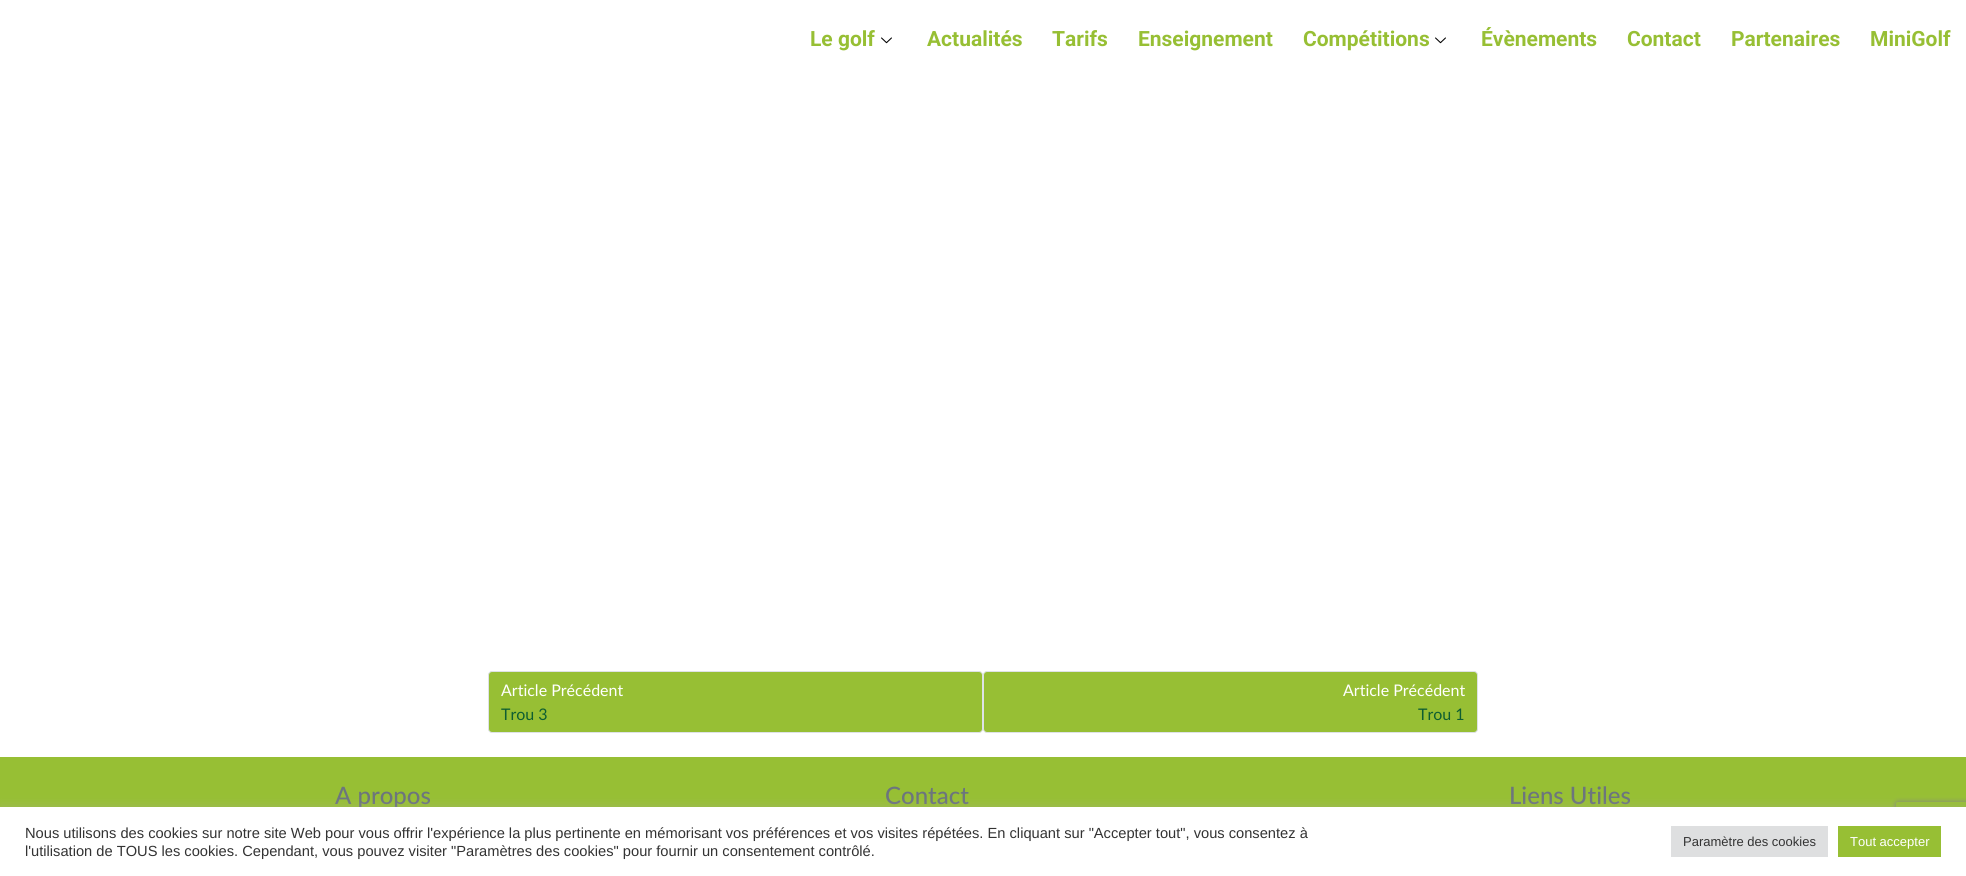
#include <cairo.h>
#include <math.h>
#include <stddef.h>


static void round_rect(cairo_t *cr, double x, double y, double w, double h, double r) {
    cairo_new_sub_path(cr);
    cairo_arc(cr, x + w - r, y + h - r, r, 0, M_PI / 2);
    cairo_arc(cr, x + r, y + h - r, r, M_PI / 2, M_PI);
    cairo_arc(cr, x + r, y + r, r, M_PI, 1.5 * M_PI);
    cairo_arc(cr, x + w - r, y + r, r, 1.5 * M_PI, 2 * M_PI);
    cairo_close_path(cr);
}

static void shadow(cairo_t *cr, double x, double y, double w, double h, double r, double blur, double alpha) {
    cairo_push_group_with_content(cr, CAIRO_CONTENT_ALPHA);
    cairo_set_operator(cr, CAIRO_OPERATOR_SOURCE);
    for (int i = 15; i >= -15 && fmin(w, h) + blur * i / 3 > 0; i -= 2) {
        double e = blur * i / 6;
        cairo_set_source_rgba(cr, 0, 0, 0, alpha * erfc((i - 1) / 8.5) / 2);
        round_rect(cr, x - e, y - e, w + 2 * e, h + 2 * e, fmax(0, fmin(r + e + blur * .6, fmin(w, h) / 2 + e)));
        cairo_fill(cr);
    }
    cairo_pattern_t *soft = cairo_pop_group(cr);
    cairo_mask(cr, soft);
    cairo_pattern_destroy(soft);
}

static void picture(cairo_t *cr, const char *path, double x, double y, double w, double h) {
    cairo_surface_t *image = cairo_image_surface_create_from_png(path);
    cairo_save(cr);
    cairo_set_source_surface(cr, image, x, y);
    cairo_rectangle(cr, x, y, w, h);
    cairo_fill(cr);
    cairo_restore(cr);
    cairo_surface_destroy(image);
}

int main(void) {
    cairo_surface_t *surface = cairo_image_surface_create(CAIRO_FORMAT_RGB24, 1966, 876);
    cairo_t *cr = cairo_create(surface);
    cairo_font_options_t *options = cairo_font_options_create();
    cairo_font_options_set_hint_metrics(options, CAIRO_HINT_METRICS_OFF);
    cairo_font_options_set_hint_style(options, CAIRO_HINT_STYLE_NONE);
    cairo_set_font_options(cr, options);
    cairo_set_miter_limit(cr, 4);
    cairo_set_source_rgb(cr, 1, 1, 1);
    cairo_paint(cr);
    cairo_select_font_face(cr, "Roboto", CAIRO_FONT_SLANT_NORMAL, CAIRO_FONT_WEIGHT_BOLD);
    cairo_set_font_size(cr, 21);
    cairo_set_source_rgb(cr, 0.592, 0.749, 0.204);
    cairo_move_to(cr, 810, 46);
    cairo_show_text(cr, "Le golf");
    picture(cr, "img1.png", 881, 37, 11, 7);
    cairo_move_to(cr, 927, 46);
    cairo_show_text(cr, "Actualités");
    cairo_move_to(cr, 1052, 46);
    cairo_show_text(cr, "Tarifs");
    cairo_move_to(cr, 1138, 46);
    cairo_show_text(cr, "Enseignement");
    cairo_move_to(cr, 1303, 46);
    cairo_show_text(cr, "Compétitions");
    picture(cr, "img1.png", 1435, 37, 11, 7);
    cairo_move_to(cr, 1481, 46);
    cairo_show_text(cr, "Évènements");
    cairo_move_to(cr, 1627, 46);
    cairo_show_text(cr, "Contact");
    cairo_move_to(cr, 1731, 46);
    cairo_show_text(cr, "Partenaires");
    cairo_move_to(cr, 1870, 46);
    cairo_show_text(cr, "MiniGolf");
    round_rect(cr, 488.5, 671.5, 494, 61, 3.5);
    cairo_fill_preserve(cr);
    cairo_set_source_rgb(cr, 0.871, 0.886, 0.902);
    cairo_set_line_width(cr, 1);
    cairo_stroke(cr);
    cairo_select_font_face(cr, "Lato", CAIRO_FONT_SLANT_NORMAL, CAIRO_FONT_WEIGHT_NORMAL);
    cairo_set_font_size(cr, 16);
    cairo_set_source_rgb(cr, 1, 1, 1);
    cairo_move_to(cr, 501, 696);
    cairo_show_text(cr, "Article Précédent");
    cairo_set_source_rgb(cr, 0.055, 0.369, 0.192);
    cairo_move_to(cr, 501, 720);
    cairo_show_text(cr, "Trou 3");
    cairo_set_source_rgb(cr, 0.592, 0.749, 0.204);
    round_rect(cr, 983.5, 671.5, 494, 61, 3.5);
    cairo_fill_preserve(cr);
    cairo_set_source_rgb(cr, 0.871, 0.886, 0.902);
    cairo_stroke(cr);
    cairo_set_source_rgb(cr, 1, 1, 1);
    cairo_move_to(cr, 1343, 696);
    cairo_show_text(cr, "Article Précédent");
    cairo_set_source_rgb(cr, 0.055, 0.369, 0.192);
    cairo_move_to(cr, 1418, 720);
    cairo_show_text(cr, "Trou 1");
    cairo_set_source_rgb(cr, 0.592, 0.749, 0.204);
    cairo_rectangle(cr, 0, 757, 1966, 50);
    cairo_fill(cr);
    cairo_select_font_face(cr, "Lato Medium", CAIRO_FONT_SLANT_NORMAL, CAIRO_FONT_WEIGHT_NORMAL);
    cairo_set_font_size(cr, 24);
    cairo_set_source_rgb(cr, 0.424, 0.459, 0.49);
    cairo_move_to(cr, 335, 804);
    cairo_show_text(cr, "A propos");
    cairo_move_to(cr, 885, 804);
    cairo_show_text(cr, "Contact");
    cairo_move_to(cr, 1509, 804);
    cairo_show_text(cr, "Liens Utiles");
    cairo_save(cr);
    cairo_set_fill_rule(cr, CAIRO_FILL_RULE_EVEN_ODD);
    cairo_new_path(cr);
    cairo_move_to(cr, 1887, 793);
    cairo_line_to(cr, 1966, 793);
    cairo_line_to(cr, 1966, 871);
    cairo_line_to(cr, 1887, 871);
    cairo_close_path(cr);
    cairo_move_to(cr, 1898, 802);
    cairo_line_to(cr, 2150, 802);
    cairo_curve_to(cr, 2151, 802, 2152, 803, 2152, 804);
    cairo_line_to(cr, 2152, 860);
    cairo_curve_to(cr, 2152, 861, 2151, 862, 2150, 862);
    cairo_line_to(cr, 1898, 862);
    cairo_curve_to(cr, 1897, 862, 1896, 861, 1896, 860);
    cairo_line_to(cr, 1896, 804);
    cairo_curve_to(cr, 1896, 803, 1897, 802, 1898, 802);
    cairo_close_path(cr);
    cairo_clip(cr);
    cairo_set_source_rgb(cr, 0.502, 0.502, 0.502);
    shadow(cr, 1896, 802, 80, 60, 2, 2.5, 1);
    cairo_restore(cr);
    cairo_set_source_rgb(cr, 0.675, 0.671, 0.671);
    shadow(cr, 0, 806, 1966, 69, 0, 5, 0.3);
    cairo_set_source_rgb(cr, 1, 1, 1);
    cairo_rectangle(cr, 0, 807, 1966, 69);
    cairo_fill(cr);
    cairo_select_font_face(cr, "Liberation Sans", CAIRO_FONT_SLANT_NORMAL, CAIRO_FONT_WEIGHT_NORMAL);
    cairo_set_font_size(cr, 14.67);
    cairo_set_source_rgb(cr, 0.2, 0.2, 0.2);
    cairo_move_to(cr, 25, 838);
    cairo_show_text(cr, "Nous utilisons des cookies sur notre site Web pour vous offrir l'expérience la plus pertinente en mémorisant vos préférences et vos visites répétées. En cliquant sur \"Accepter tout\", vous consentez à");
    cairo_move_to(cr, 25, 856);
    cairo_show_text(cr, "l'utilisation de TOUS les cookies. Cependant, vous pouvez visiter \"Paramètres des cookies\" pour fournir un consentement contrôlé.");
    cairo_set_source_rgb(cr, 0.871, 0.875, 0.878);
    cairo_rectangle(cr, 1671, 826, 157, 31);
    cairo_fill(cr);
    cairo_set_font_size(cr, 13);
    cairo_set_source_rgb(cr, 0.2, 0.2, 0.2);
    cairo_move_to(cr, 1683, 846);
    cairo_show_text(cr, "Paramètre des cookies");
    cairo_set_source_rgb(cr, 0.592, 0.749, 0.204);
    cairo_rectangle(cr, 1838, 826, 103, 31);
    cairo_fill(cr);
    cairo_set_source_rgb(cr, 1, 1, 1);
    cairo_move_to(cr, 1850, 846);
    cairo_show_text(cr, "Tout accepter");
    cairo_surface_write_to_png(surface, "page.png");
    cairo_font_options_destroy(options);
    cairo_destroy(cr);
    cairo_surface_destroy(surface);
    return 0;
}
